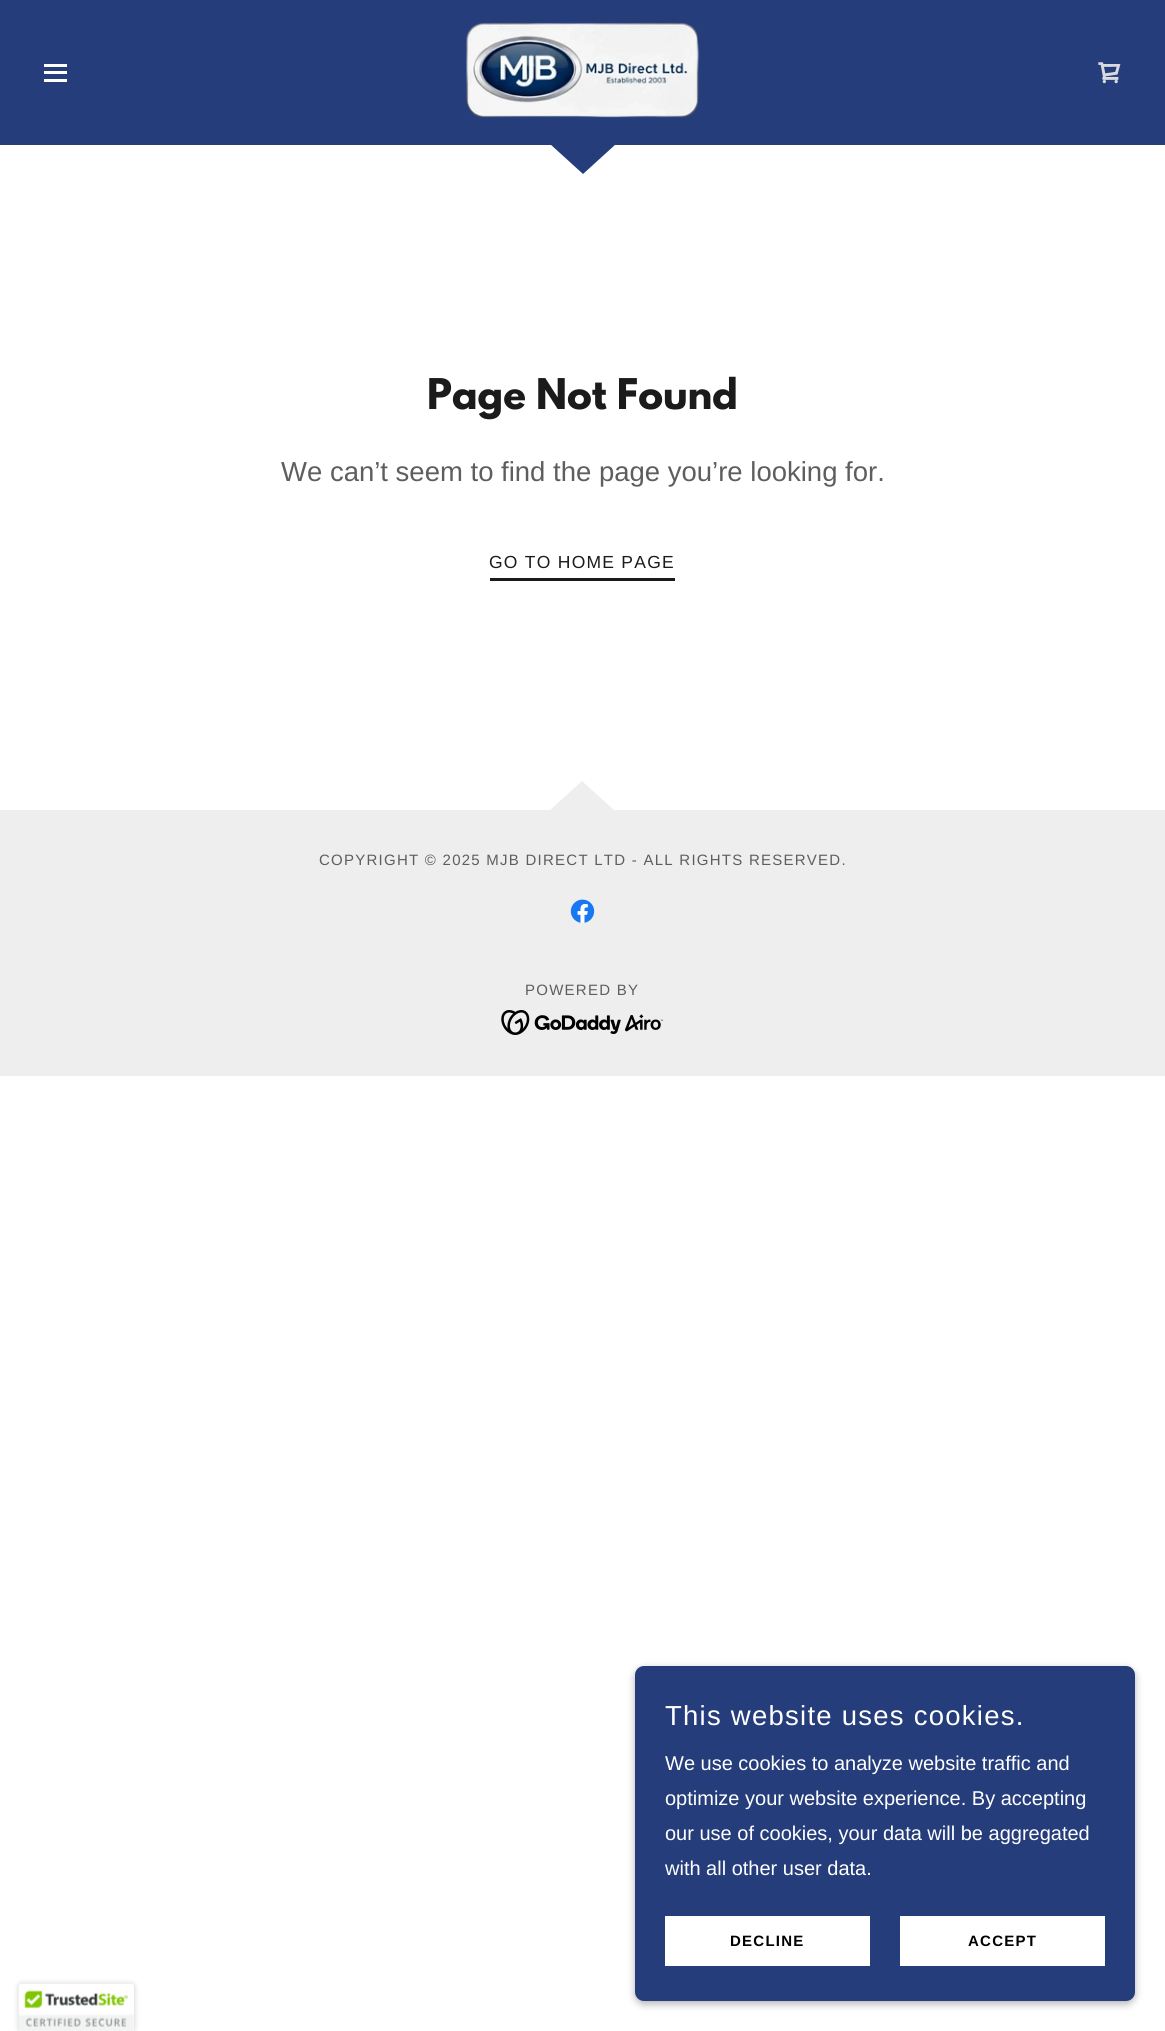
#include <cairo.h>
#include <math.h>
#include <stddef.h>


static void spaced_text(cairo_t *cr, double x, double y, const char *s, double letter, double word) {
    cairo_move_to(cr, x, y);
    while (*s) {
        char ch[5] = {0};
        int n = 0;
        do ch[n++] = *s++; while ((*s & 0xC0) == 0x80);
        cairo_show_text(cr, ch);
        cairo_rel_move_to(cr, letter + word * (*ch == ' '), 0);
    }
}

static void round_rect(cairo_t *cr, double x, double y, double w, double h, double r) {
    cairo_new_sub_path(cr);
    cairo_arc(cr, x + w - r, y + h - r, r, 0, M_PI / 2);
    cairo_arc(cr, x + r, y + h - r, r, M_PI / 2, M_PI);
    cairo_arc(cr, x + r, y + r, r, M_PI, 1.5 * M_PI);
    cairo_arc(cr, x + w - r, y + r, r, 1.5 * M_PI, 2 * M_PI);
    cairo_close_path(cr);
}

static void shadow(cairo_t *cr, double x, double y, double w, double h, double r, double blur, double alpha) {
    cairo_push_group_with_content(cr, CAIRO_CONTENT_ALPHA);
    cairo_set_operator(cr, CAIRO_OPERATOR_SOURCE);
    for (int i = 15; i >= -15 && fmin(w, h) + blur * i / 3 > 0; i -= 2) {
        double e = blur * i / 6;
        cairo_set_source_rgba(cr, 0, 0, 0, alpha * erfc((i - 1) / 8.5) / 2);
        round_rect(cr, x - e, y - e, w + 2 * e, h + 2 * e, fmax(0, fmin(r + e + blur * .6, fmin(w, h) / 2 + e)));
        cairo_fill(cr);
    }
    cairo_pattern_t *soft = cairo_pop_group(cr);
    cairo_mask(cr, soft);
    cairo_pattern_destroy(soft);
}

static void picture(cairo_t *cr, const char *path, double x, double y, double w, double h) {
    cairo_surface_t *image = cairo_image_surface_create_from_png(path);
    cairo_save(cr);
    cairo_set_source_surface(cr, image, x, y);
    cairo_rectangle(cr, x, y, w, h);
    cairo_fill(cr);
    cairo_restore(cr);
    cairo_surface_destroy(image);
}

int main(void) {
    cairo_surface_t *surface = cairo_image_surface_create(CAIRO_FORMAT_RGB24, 1165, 2031);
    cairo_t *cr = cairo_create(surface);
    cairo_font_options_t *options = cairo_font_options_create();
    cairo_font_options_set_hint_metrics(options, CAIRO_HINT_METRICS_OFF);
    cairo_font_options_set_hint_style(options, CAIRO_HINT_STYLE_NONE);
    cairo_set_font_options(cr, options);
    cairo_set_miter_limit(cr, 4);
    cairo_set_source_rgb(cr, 1, 1, 1);
    cairo_paint(cr);
    cairo_set_source_rgb(cr, 0.145, 0.239, 0.478);
    cairo_rectangle(cr, 0, 0, 1165, 145);
    cairo_fill(cr);
    cairo_set_source_rgb(cr, 1, 1, 1);
    cairo_rectangle(cr, 44, 64, 23, 3);
    cairo_fill(cr);
    cairo_rectangle(cr, 44, 71, 23, 3);
    cairo_fill(cr);
    cairo_rectangle(cr, 44, 79, 23, 3);
    cairo_fill(cr);
    picture(cr, "img1.png", 466, 22, 233, 96);
    picture(cr, "img2.png", 1098, 62, 23, 22);
    cairo_set_source_rgb(cr, 0.145, 0.239, 0.478);
    cairo_set_fill_rule(cr, CAIRO_FILL_RULE_EVEN_ODD);
    cairo_new_path(cr);
    cairo_move_to(cr, 583, 174);
    cairo_line_to(cr, 616, 144);
    cairo_line_to(cr, 550, 144);
    cairo_close_path(cr);
    cairo_fill(cr);
    cairo_select_font_face(cr, "League Spartan", CAIRO_FONT_SLANT_NORMAL, CAIRO_FONT_WEIGHT_BOLD);
    cairo_set_font_size(cr, 37.5);
    cairo_set_source_rgb(cr, 0.106, 0.106, 0.106);
    cairo_move_to(cr, 427, 409);
    cairo_show_text(cr, "Page Not Found");
    cairo_select_font_face(cr, "Liberation Sans", CAIRO_FONT_SLANT_NORMAL, CAIRO_FONT_WEIGHT_NORMAL);
    cairo_set_font_size(cr, 27.5);
    cairo_set_source_rgb(cr, 0.369, 0.369, 0.369);
    cairo_move_to(cr, 281, 481);
    cairo_show_text(cr, "We can’t seem to find the page you’re looking for.");
    cairo_set_source_rgb(cr, 0.106, 0.106, 0.106);
    cairo_rectangle(cr, 490, 578, 185, 3);
    cairo_fill(cr);
    cairo_set_font_size(cr, 17.5);
    spaced_text(cr, 489, 568, "GO TO HOME PAGE", 1.25, 0);
    cairo_set_source_rgb(cr, 0.933, 0.933, 0.933);
    cairo_rectangle(cr, 0, 810, 1165, 266);
    cairo_fill(cr);
    cairo_new_path(cr);
    cairo_move_to(cr, 582, 781);
    cairo_line_to(cr, 549, 811);
    cairo_line_to(cr, 615, 811);
    cairo_close_path(cr);
    cairo_fill(cr);
    cairo_set_font_size(cr, 15);
    cairo_set_source_rgb(cr, 0.369, 0.369, 0.369);
    spaced_text(cr, 319, 865, "COPYRIGHT © 2025 MJB DIRECT LTD - ALL RIGHTS RESERVED.", 1.25, 0);
    picture(cr, "img3.png", 570, 899, 25, 24);
    spaced_text(cr, 525, 995, "POWERED BY", 1.25, 0);
    picture(cr, "img4.png", 501, 1010, 162, 25);
    cairo_set_source_rgb(cr, 0, 0, 0);
    shadow(cr, 635, 1669, 500, 335, 9, 4, 0.3);
    cairo_set_source_rgb(cr, 0.145, 0.239, 0.478);
    round_rect(cr, 635, 1666, 500, 335, 9);
    cairo_fill(cr);
    cairo_set_font_size(cr, 27.5);
    cairo_set_source_rgb(cr, 1, 1, 1);
    spaced_text(cr, 665, 1725, "This website uses cookies.", 1.25, 0);
    cairo_set_font_size(cr, 20);
    cairo_move_to(cr, 665, 1770);
    cairo_show_text(cr, "We use cookies to analyze website traffic and");
    cairo_move_to(cr, 665, 1805);
    cairo_show_text(cr, "optimize your website experience. By accepting");
    cairo_move_to(cr, 665, 1840);
    cairo_show_text(cr, "our use of cookies, your data will be aggregated");
    cairo_move_to(cr, 665, 1875);
    cairo_show_text(cr, "with all other user data.");
    cairo_rectangle(cr, 665, 1916, 205, 50);
    cairo_fill(cr);
    cairo_select_font_face(cr, "Liberation Sans", CAIRO_FONT_SLANT_NORMAL, CAIRO_FONT_WEIGHT_BOLD);
    cairo_set_font_size(cr, 15);
    cairo_set_source_rgb(cr, 0, 0, 0);
    spaced_text(cr, 730, 1946, "DECLINE", 1.25, 0);
    cairo_set_source_rgb(cr, 1, 1, 1);
    cairo_rectangle(cr, 900, 1916, 205, 50);
    cairo_fill(cr);
    cairo_set_source_rgb(cr, 0, 0, 0);
    spaced_text(cr, 968, 1946, "ACCEPT", 1.25, 0);
    cairo_set_source_rgb(cr, 0, 0, 0);
    shadow(cr, 19, 1984, 115, 47, 2.5, 3, 0.2);
    cairo_set_source_rgb(cr, 1, 1, 1);
    cairo_new_path(cr);
    cairo_move_to(cr, 21.5, 1984);
    cairo_line_to(cr, 131.5, 1984);
    cairo_curve_to(cr, 133, 1984, 134, 1985, 134, 1986.5);
    cairo_line_to(cr, 134, 2031);
    cairo_line_to(cr, 19, 2031);
    cairo_line_to(cr, 19, 1986.5);
    cairo_curve_to(cr, 19, 1985, 20, 1984, 21.5, 1984);
    cairo_close_path(cr);
    cairo_fill(cr);
    picture(cr, "img5.png", 18, 1983, 116, 48);
    cairo_surface_write_to_png(surface, "page.png");
    cairo_font_options_destroy(options);
    cairo_destroy(cr);
    cairo_surface_destroy(surface);
    return 0;
}
